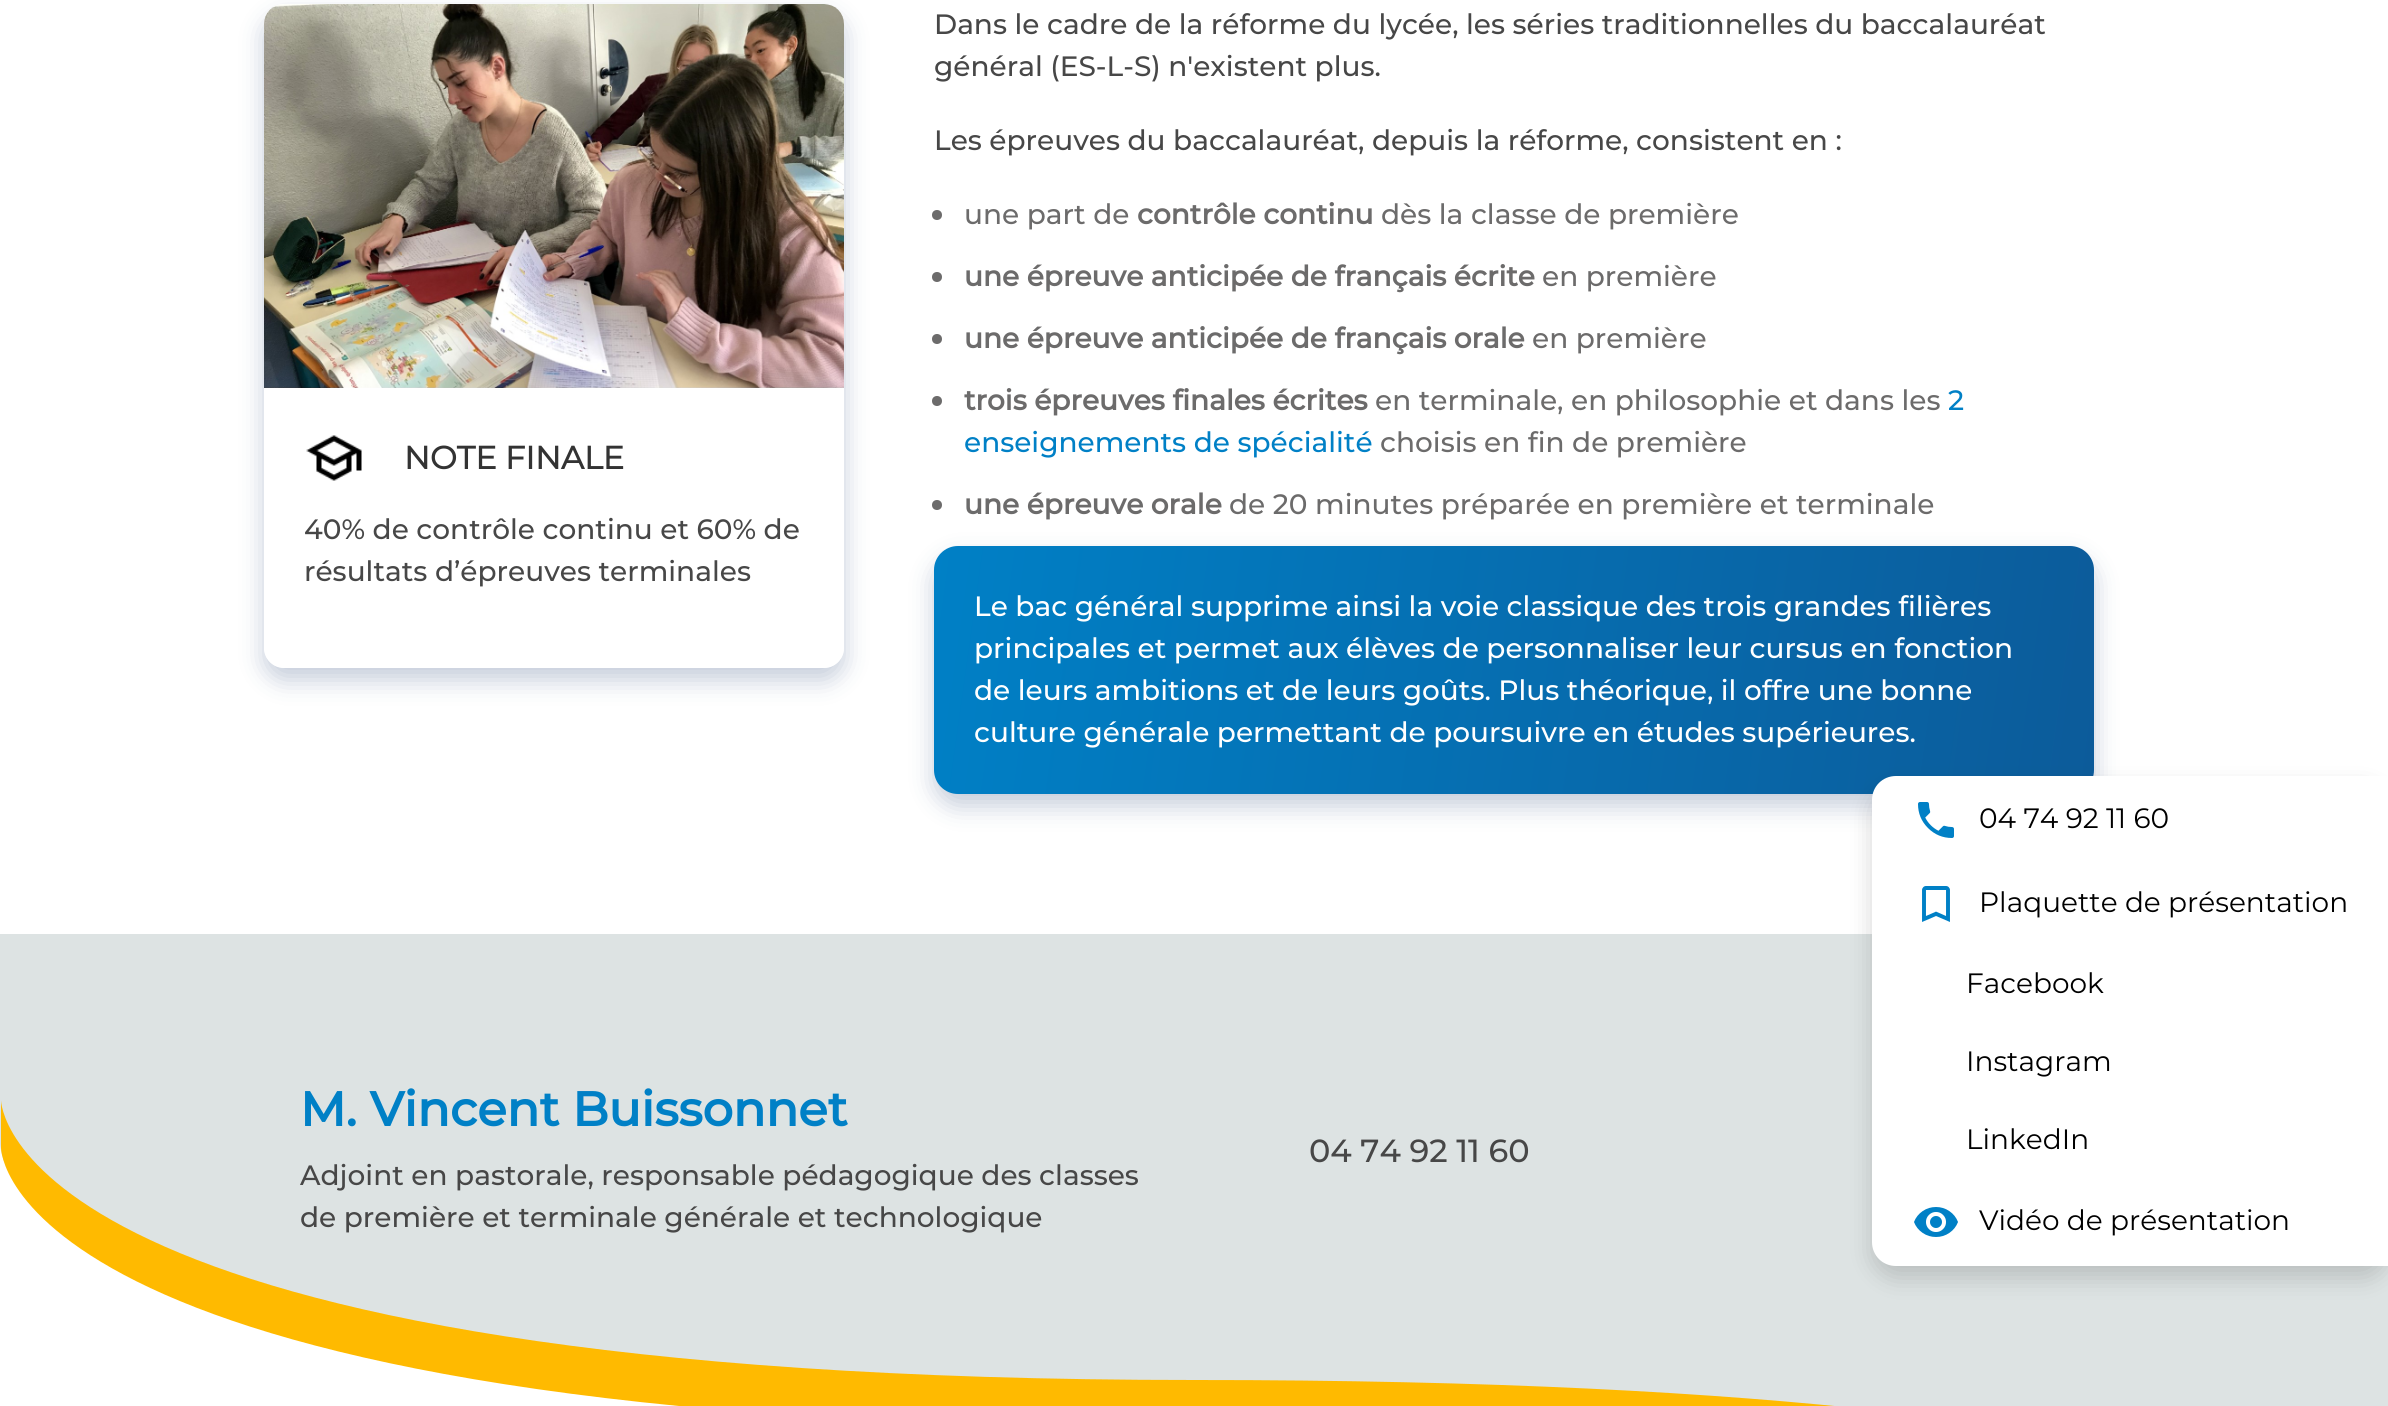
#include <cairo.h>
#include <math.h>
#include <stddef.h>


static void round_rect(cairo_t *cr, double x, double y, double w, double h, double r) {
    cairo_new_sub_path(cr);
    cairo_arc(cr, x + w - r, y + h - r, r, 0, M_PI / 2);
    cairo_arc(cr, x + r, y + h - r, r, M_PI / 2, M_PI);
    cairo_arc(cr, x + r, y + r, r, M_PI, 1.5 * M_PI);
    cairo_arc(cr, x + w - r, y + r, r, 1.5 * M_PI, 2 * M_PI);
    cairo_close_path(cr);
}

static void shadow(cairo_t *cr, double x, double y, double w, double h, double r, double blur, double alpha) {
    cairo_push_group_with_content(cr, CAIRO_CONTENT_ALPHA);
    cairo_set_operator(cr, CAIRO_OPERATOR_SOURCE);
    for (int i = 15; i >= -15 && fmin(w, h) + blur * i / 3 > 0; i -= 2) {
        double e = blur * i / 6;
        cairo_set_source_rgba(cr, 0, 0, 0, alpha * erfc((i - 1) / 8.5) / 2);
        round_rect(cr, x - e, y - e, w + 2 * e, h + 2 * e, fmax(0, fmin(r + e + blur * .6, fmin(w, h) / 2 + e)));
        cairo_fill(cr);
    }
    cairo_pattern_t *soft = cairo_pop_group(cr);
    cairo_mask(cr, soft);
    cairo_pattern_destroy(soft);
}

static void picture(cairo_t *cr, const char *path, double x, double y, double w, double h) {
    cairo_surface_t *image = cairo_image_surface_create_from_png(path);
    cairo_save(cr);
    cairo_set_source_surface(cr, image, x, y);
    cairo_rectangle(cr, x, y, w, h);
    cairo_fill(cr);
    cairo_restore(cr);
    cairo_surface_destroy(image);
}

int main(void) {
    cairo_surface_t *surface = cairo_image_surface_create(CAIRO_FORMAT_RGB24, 2388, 1406);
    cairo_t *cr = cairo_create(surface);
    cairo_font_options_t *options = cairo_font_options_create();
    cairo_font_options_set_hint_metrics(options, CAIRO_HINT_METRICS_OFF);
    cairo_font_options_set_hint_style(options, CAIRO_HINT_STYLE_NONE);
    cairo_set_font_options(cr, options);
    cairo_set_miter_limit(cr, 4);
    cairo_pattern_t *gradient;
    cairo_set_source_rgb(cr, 1, 1, 1);
    cairo_paint(cr);
    cairo_save(cr);
    cairo_set_fill_rule(cr, CAIRO_FILL_RULE_EVEN_ODD);
    cairo_new_path(cr);
    cairo_move_to(cr, 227, 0);
    cairo_line_to(cr, 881, 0);
    cairo_line_to(cr, 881, 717);
    cairo_line_to(cr, 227, 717);
    cairo_close_path(cr);
    cairo_move_to(cr, 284, 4);
    cairo_line_to(cr, 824, 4);
    cairo_curve_to(cr, 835, 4, 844, 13, 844, 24);
    cairo_line_to(cr, 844, 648);
    cairo_curve_to(cr, 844, 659, 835, 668, 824, 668);
    cairo_line_to(cr, 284, 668);
    cairo_curve_to(cr, 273, 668, 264, 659, 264, 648);
    cairo_line_to(cr, 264, 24);
    cairo_curve_to(cr, 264, 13, 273, 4, 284, 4);
    cairo_close_path(cr);
    cairo_clip(cr);
    cairo_set_source_rgb(cr, 0.09, 0.216, 0.431);
    shadow(cr, 264, 16, 580, 664, 20, 12, 0.25);
    cairo_restore(cr);
    picture(cr, "img1.png", 264, 4, 580, 384);
    picture(cr, "img2.png", 306, 435, 56, 46);
    cairo_select_font_face(cr, "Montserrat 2", CAIRO_FONT_SLANT_NORMAL, CAIRO_FONT_WEIGHT_BOLD);
    cairo_set_font_size(cr, 32);
    cairo_set_source_rgb(cr, 0.2, 0.2, 0.2);
    cairo_move_to(cr, 404, 469);
    cairo_show_text(cr, "NOTE FINALE");
    cairo_select_font_face(cr, "Montserrat Medium", CAIRO_FONT_SLANT_NORMAL, CAIRO_FONT_WEIGHT_NORMAL);
    cairo_set_font_size(cr, 28);
    cairo_set_source_rgb(cr, 0.278, 0.278, 0.278);
    cairo_move_to(cr, 304, 539);
    cairo_show_text(cr, "40% de contrôle continu et 60% de");
    cairo_move_to(cr, 304, 581);
    cairo_show_text(cr, "résultats d’épreuves terminales");
    cairo_move_to(cr, 934, 34);
    cairo_show_text(cr, "Dans le cadre de la réforme du lycée, les séries traditionnelles du baccalauréat");
    cairo_move_to(cr, 934, 76);
    cairo_show_text(cr, "général (ES-L-S) n'existent plus.");
    cairo_move_to(cr, 934, 150);
    cairo_show_text(cr, "Les épreuves du baccalauréat, depuis la réforme, consistent en :");
    cairo_set_source_rgb(cr, 0.424, 0.42, 0.42);
    cairo_new_path(cr);
    cairo_arc(cr, 937, 215, 5, 0, 2 * M_PI);
    cairo_fill(cr);
    cairo_move_to(cr, 964, 224);
    cairo_show_text(cr, "une part de");
    cairo_select_font_face(cr, "Montserrat", CAIRO_FONT_SLANT_NORMAL, CAIRO_FONT_WEIGHT_BOLD);
    cairo_move_to(cr, 1137, 224);
    cairo_show_text(cr, "contrôle continu");
    cairo_select_font_face(cr, "Montserrat Medium", CAIRO_FONT_SLANT_NORMAL, CAIRO_FONT_WEIGHT_NORMAL);
    cairo_move_to(cr, 1381, 224);
    cairo_show_text(cr, "dès la classe de première");
    cairo_new_path(cr);
    cairo_arc(cr, 937, 277, 5, 0, 2 * M_PI);
    cairo_fill(cr);
    cairo_select_font_face(cr, "Montserrat", CAIRO_FONT_SLANT_NORMAL, CAIRO_FONT_WEIGHT_BOLD);
    cairo_move_to(cr, 964, 286);
    cairo_show_text(cr, "une épreuve anticipée de français écrite");
    cairo_select_font_face(cr, "Montserrat Medium", CAIRO_FONT_SLANT_NORMAL, CAIRO_FONT_WEIGHT_NORMAL);
    cairo_move_to(cr, 1542, 286);
    cairo_show_text(cr, "en première");
    cairo_new_path(cr);
    cairo_arc(cr, 937, 339, 5, 0, 2 * M_PI);
    cairo_fill(cr);
    cairo_select_font_face(cr, "Montserrat", CAIRO_FONT_SLANT_NORMAL, CAIRO_FONT_WEIGHT_BOLD);
    cairo_move_to(cr, 964, 348);
    cairo_show_text(cr, "une épreuve anticipée de français orale");
    cairo_select_font_face(cr, "Montserrat Medium", CAIRO_FONT_SLANT_NORMAL, CAIRO_FONT_WEIGHT_NORMAL);
    cairo_move_to(cr, 1532, 348);
    cairo_show_text(cr, "en première");
    cairo_new_path(cr);
    cairo_arc(cr, 937, 401, 5, 0, 2 * M_PI);
    cairo_fill(cr);
    cairo_select_font_face(cr, "Montserrat", CAIRO_FONT_SLANT_NORMAL, CAIRO_FONT_WEIGHT_BOLD);
    cairo_move_to(cr, 964, 410);
    cairo_show_text(cr, "trois épreuves finales écrites");
    cairo_select_font_face(cr, "Montserrat Medium", CAIRO_FONT_SLANT_NORMAL, CAIRO_FONT_WEIGHT_NORMAL);
    cairo_move_to(cr, 1375, 410);
    cairo_show_text(cr, "en terminale, en philosophie et dans les");
    cairo_set_source_rgb(cr, 0, 0.502, 0.776);
    cairo_move_to(cr, 1948, 410);
    cairo_show_text(cr, "2");
    cairo_move_to(cr, 964, 452);
    cairo_show_text(cr, "enseignements de spécialité");
    cairo_set_source_rgb(cr, 0.424, 0.42, 0.42);
    cairo_move_to(cr, 1380, 452);
    cairo_show_text(cr, "choisis en fin de première");
    cairo_new_path(cr);
    cairo_arc(cr, 937, 505, 5, 0, 2 * M_PI);
    cairo_fill(cr);
    cairo_select_font_face(cr, "Montserrat", CAIRO_FONT_SLANT_NORMAL, CAIRO_FONT_WEIGHT_BOLD);
    cairo_move_to(cr, 964, 514);
    cairo_show_text(cr, "une épreuve orale");
    cairo_select_font_face(cr, "Montserrat Medium", CAIRO_FONT_SLANT_NORMAL, CAIRO_FONT_WEIGHT_NORMAL);
    cairo_move_to(cr, 1229, 514);
    cairo_show_text(cr, "de 20 minutes préparée en première et terminale");
    cairo_set_source_rgb(cr, 0.09, 0.216, 0.431);
    shadow(cr, 934, 558, 1160, 248, 24, 12, 0.25);
    gradient = cairo_pattern_create_linear(928, 588, 2100, 752);
    cairo_pattern_add_color_stop_rgba(gradient, 0, 0, 0.502, 0.776, 1);
    cairo_pattern_add_color_stop_rgba(gradient, 1, 0.047, 0.357, 0.604, 1);
    cairo_set_source(cr, gradient);
    cairo_pattern_destroy(gradient);
    round_rect(cr, 934, 546, 1160, 248, 24);
    cairo_fill(cr);
    cairo_set_source_rgb(cr, 1, 1, 1);
    cairo_move_to(cr, 974, 616);
    cairo_show_text(cr, "Le bac général supprime ainsi la voie classique des trois grandes filières");
    cairo_move_to(cr, 974, 658);
    cairo_show_text(cr, "principales et permet aux élèves de personnaliser leur cursus en fonction");
    cairo_move_to(cr, 974, 700);
    cairo_show_text(cr, "de leurs ambitions et de leurs goûts. Plus théorique, il offre une bonne");
    cairo_move_to(cr, 974, 742);
    cairo_show_text(cr, "culture générale permettant de poursuivre en études supérieures.");
    cairo_set_source_rgb(cr, 0.867, 0.89, 0.89);
    cairo_rectangle(cr, 0, 934, 2388, 472);
    cairo_fill(cr);
    cairo_set_source_rgb(cr, 1, 1, 1);
    cairo_new_path(cr);
    cairo_move_to(cr, 2387, 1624);
    cairo_curve_to(cr, 2387, 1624, 2387, 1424, 1193, 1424);
    cairo_curve_to(cr, 0, 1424, 0, 1144, 0, 1144);
    cairo_line_to(cr, 0, 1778);
    cairo_line_to(cr, 2387, 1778);
    cairo_close_path(cr);
    cairo_fill(cr);
    cairo_set_source_rgb(cr, 1, 0.729, 0);
    cairo_new_path(cr);
    cairo_move_to(cr, 2388, 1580);
    cairo_curve_to(cr, 2388, 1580, 2388, 1380, 1195, 1380);
    cairo_curve_to(cr, 1, 1380, 1, 1100, 1, 1100);
    cairo_line_to(cr, 1, 1148);
    cairo_curve_to(cr, 1, 1148, 1, 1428, 1195, 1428);
    cairo_curve_to(cr, 2388, 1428, 2388, 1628, 2388, 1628);
    cairo_close_path(cr);
    cairo_fill(cr);
    cairo_select_font_face(cr, "Montserrat", CAIRO_FONT_SLANT_NORMAL, CAIRO_FONT_WEIGHT_BOLD);
    cairo_set_font_size(cr, 48);
    cairo_set_source_rgb(cr, 0, 0.502, 0.776);
    cairo_move_to(cr, 300, 1126);
    cairo_show_text(cr, "M. Vincent Buissonnet");
    cairo_select_font_face(cr, "Montserrat Medium", CAIRO_FONT_SLANT_NORMAL, CAIRO_FONT_WEIGHT_NORMAL);
    cairo_set_font_size(cr, 28);
    cairo_set_source_rgb(cr, 0.278, 0.278, 0.278);
    cairo_move_to(cr, 300, 1185);
    cairo_show_text(cr, "Adjoint en pastorale, responsable pédagogique des classes");
    cairo_move_to(cr, 300, 1227);
    cairo_show_text(cr, "de première et terminale générale et technologique");
    cairo_set_font_size(cr, 32);
    cairo_move_to(cr, 1309, 1162);
    cairo_show_text(cr, "04 74 92 11 60");
    cairo_set_source_rgb(cr, 0, 0, 0);
    shadow(cr, 1872, 788, 516, 490, 24, 12, 0.16);
    cairo_set_source_rgb(cr, 1, 1, 1);
    cairo_new_path(cr);
    cairo_move_to(cr, 1896, 776);
    cairo_line_to(cr, 2388, 776);
    cairo_line_to(cr, 2388, 1266);
    cairo_line_to(cr, 1896, 1266);
    cairo_curve_to(cr, 1882.5, 1266, 1872, 1255.5, 1872, 1242);
    cairo_line_to(cr, 1872, 800);
    cairo_curve_to(cr, 1872, 786.5, 1882.5, 776, 1896, 776);
    cairo_close_path(cr);
    cairo_fill(cr);
    picture(cr, "img3.png", 1918, 802, 36, 36);
    cairo_select_font_face(cr, "Montserrat", CAIRO_FONT_SLANT_NORMAL, CAIRO_FONT_WEIGHT_NORMAL);
    cairo_set_font_size(cr, 28);
    cairo_set_source_rgb(cr, 0, 0, 0);
    cairo_move_to(cr, 1979, 828);
    cairo_show_text(cr, "04 74 92 11 60");
    picture(cr, "img4.png", 1922, 886, 28, 36);
    cairo_move_to(cr, 1979, 912);
    cairo_show_text(cr, "Plaquette de présentation");
    cairo_move_to(cr, 1966, 993);
    cairo_show_text(cr, "Facebook");
    cairo_move_to(cr, 1966, 1071);
    cairo_show_text(cr, "Instagram");
    cairo_move_to(cr, 1966, 1149);
    cairo_show_text(cr, "LinkedIn");
    picture(cr, "img5.png", 1914, 1207, 44, 30);
    cairo_move_to(cr, 1979, 1230);
    cairo_show_text(cr, "Vidéo de présentation");
    cairo_surface_write_to_png(surface, "page.png");
    cairo_font_options_destroy(options);
    cairo_destroy(cr);
    cairo_surface_destroy(surface);
    return 0;
}
